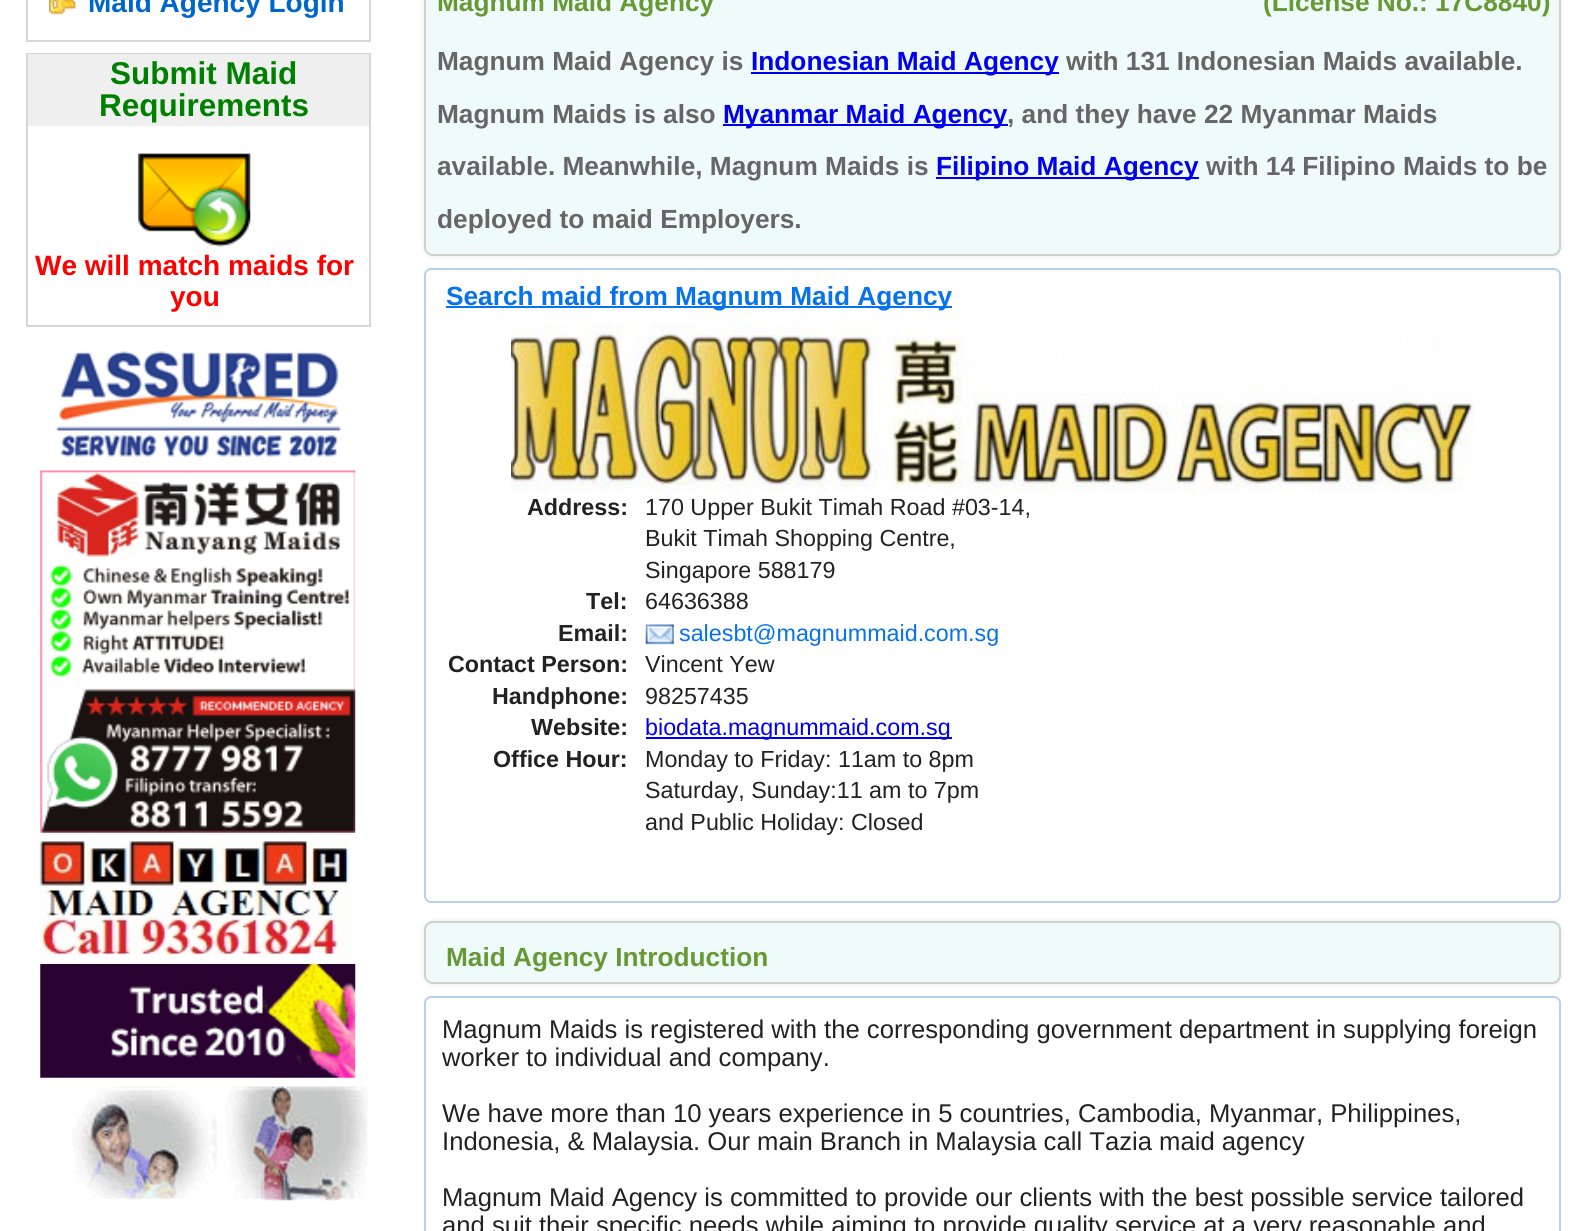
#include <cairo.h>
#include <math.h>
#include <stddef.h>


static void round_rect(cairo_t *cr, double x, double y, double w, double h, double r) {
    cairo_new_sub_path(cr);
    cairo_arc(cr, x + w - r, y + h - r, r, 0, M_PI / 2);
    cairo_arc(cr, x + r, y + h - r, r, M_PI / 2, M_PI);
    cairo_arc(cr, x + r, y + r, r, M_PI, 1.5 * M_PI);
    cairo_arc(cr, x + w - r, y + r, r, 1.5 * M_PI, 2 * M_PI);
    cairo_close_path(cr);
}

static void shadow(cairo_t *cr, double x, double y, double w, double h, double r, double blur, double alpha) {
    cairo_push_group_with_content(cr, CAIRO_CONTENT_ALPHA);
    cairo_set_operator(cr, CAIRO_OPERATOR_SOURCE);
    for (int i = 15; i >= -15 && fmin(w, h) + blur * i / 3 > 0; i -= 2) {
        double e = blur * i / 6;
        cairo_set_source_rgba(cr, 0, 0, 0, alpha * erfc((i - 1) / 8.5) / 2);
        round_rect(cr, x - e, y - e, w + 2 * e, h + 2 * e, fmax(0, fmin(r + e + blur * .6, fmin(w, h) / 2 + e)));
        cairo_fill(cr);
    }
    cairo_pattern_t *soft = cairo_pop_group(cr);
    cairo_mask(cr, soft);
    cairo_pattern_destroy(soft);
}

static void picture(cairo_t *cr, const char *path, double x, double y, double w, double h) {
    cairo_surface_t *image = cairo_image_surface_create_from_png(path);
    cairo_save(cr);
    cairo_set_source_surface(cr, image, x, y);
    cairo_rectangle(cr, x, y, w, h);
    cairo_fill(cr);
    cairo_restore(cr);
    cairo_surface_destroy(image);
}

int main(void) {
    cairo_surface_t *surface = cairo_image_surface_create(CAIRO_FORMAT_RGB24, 1587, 1231);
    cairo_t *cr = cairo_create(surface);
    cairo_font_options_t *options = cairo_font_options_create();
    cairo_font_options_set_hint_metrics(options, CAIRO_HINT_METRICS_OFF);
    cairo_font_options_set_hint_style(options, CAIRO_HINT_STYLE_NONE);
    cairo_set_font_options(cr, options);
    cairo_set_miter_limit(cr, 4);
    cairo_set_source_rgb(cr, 1, 1, 1);
    cairo_paint(cr);
    cairo_rectangle(cr, 27, -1, 343, 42);
    cairo_set_source_rgb(cr, 0.839, 0.839, 0.839);
    cairo_stroke(cr);
    picture(cr, "img1.png", 49, 0, 27, 15);
    cairo_select_font_face(cr, "Liberation Sans", CAIRO_FONT_SLANT_NORMAL, CAIRO_FONT_WEIGHT_BOLD);
    cairo_set_font_size(cr, 28);
    cairo_set_source_rgb(cr, 0, 0.4, 0.8);
    cairo_move_to(cr, 88, 12);
    cairo_show_text(cr, "Maid Agency Login");
    cairo_rectangle(cr, 27, 54, 343, 272);
    cairo_set_source_rgb(cr, 0.839, 0.839, 0.839);
    cairo_stroke(cr);
    cairo_set_source_rgb(cr, 0.937, 0.937, 0.937);
    cairo_rectangle(cr, 28, 54, 341, 72);
    cairo_fill(cr);
    cairo_set_font_size(cr, 31.5);
    cairo_set_source_rgb(cr, 0, 0.502, 0);
    cairo_move_to(cr, 110, 84);
    cairo_show_text(cr, "Submit Maid");
    cairo_move_to(cr, 99, 116);
    cairo_show_text(cr, "Requirements");
    picture(cr, "img2.png", 138, 153, 113, 94);
    cairo_set_font_size(cr, 28);
    cairo_set_source_rgb(cr, 1, 0, 0);
    cairo_move_to(cr, 35, 275);
    cairo_show_text(cr, "We will match maids for");
    cairo_move_to(cr, 170, 306);
    cairo_show_text(cr, "you");
    picture(cr, "img3.png", 55, 351, 287, 106);
    picture(cr, "img4.png", 40, 470, 316, 363);
    picture(cr, "img5.png", 39, 841, 312, 115);
    picture(cr, "img6.png", 40, 964, 316, 114);
    picture(cr, "img7.png", 72, 1086, 297, 115);
    cairo_set_source_rgb(cr, 0, 0, 0);
    shadow(cr, 424, -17, 1137, 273, 9, 2.5, 0.1);
    cairo_set_source_rgb(cr, 0.937, 0.984, 0.984);
    round_rect(cr, 425, -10, 1135, 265, 8);
    cairo_fill_preserve(cr);
    cairo_set_source_rgb(cr, 0.82, 0.816, 0.808);
    cairo_stroke(cr);
    cairo_set_font_size(cr, 26.25);
    cairo_set_source_rgb(cr, 0.4, 0.6, 0.2);
    cairo_move_to(cr, 437, 11);
    cairo_show_text(cr, "Magnum Maid Agency");
    cairo_move_to(cr, 1263, 11);
    cairo_show_text(cr, "(License No.: 17C8840)");
    cairo_set_source_rgb(cr, 0.4, 0.4, 0.4);
    cairo_move_to(cr, 437, 70);
    cairo_show_text(cr, "Magnum Maid Agency is");
    cairo_set_source_rgb(cr, 0, 0, 0.933);
    cairo_rectangle(cr, 751, 72, 308, 2);
    cairo_fill(cr);
    cairo_move_to(cr, 751, 70);
    cairo_show_text(cr, "Indonesian Maid Agency");
    cairo_set_source_rgb(cr, 0.4, 0.4, 0.4);
    cairo_move_to(cr, 1066, 70);
    cairo_show_text(cr, "with 131 Indonesian Maids available.");
    cairo_move_to(cr, 437, 123);
    cairo_show_text(cr, "Magnum Maids is also");
    cairo_set_source_rgb(cr, 0, 0, 0.933);
    cairo_rectangle(cr, 723, 124, 285, 2);
    cairo_fill(cr);
    cairo_move_to(cr, 723, 123);
    cairo_show_text(cr, "Myanmar Maid Agency");
    cairo_set_source_rgb(cr, 0.4, 0.4, 0.4);
    cairo_move_to(cr, 1007, 123);
    cairo_show_text(cr, ", and they have 22 Myanmar Maids");
    cairo_move_to(cr, 437, 175);
    cairo_show_text(cr, "available. Meanwhile, Magnum Maids is");
    cairo_set_source_rgb(cr, 0, 0, 0.933);
    cairo_rectangle(cr, 936, 177, 263, 2);
    cairo_fill(cr);
    cairo_move_to(cr, 936, 175);
    cairo_show_text(cr, "Filipino Maid Agency");
    cairo_set_source_rgb(cr, 0.4, 0.4, 0.4);
    cairo_move_to(cr, 1206, 175);
    cairo_show_text(cr, "with 14 Filipino Maids to be");
    cairo_move_to(cr, 437, 228);
    cairo_show_text(cr, "deployed to maid Employers.");
    round_rect(cr, 425, 269, 1135, 633, 6);
    cairo_set_source_rgb(cr, 0.718, 0.816, 0.937);
    cairo_stroke(cr);
    cairo_set_source_rgb(cr, 0.024, 0.447, 0.925);
    cairo_rectangle(cr, 446, 306, 506, 2);
    cairo_fill(cr);
    cairo_move_to(cr, 446, 305);
    cairo_show_text(cr, "Search maid from Magnum Maid Agency");
    picture(cr, "img8.png", 511, 323, 963, 169);
    cairo_set_font_size(cr, 23.3);
    cairo_set_source_rgb(cr, 0.133, 0.133, 0.133);
    cairo_move_to(cr, 527, 515);
    cairo_show_text(cr, "Address:");
    cairo_select_font_face(cr, "Liberation Sans", CAIRO_FONT_SLANT_NORMAL, CAIRO_FONT_WEIGHT_NORMAL);
    cairo_move_to(cr, 645, 515);
    cairo_show_text(cr, "170 Upper Bukit Timah Road #03-14,");
    cairo_move_to(cr, 645, 546);
    cairo_show_text(cr, "Bukit Timah Shopping Centre,");
    cairo_move_to(cr, 645, 578);
    cairo_show_text(cr, "Singapore 588179");
    cairo_select_font_face(cr, "Liberation Sans", CAIRO_FONT_SLANT_NORMAL, CAIRO_FONT_WEIGHT_BOLD);
    cairo_move_to(cr, 586, 609);
    cairo_show_text(cr, "Tel:");
    cairo_select_font_face(cr, "Liberation Sans", CAIRO_FONT_SLANT_NORMAL, CAIRO_FONT_WEIGHT_NORMAL);
    cairo_move_to(cr, 645, 609);
    cairo_show_text(cr, "64636388");
    cairo_select_font_face(cr, "Liberation Sans", CAIRO_FONT_SLANT_NORMAL, CAIRO_FONT_WEIGHT_BOLD);
    cairo_move_to(cr, 558, 641);
    cairo_show_text(cr, "Email:");
    picture(cr, "img9.png", 645, 624, 29, 21);
    cairo_select_font_face(cr, "Liberation Sans", CAIRO_FONT_SLANT_NORMAL, CAIRO_FONT_WEIGHT_NORMAL);
    cairo_set_source_rgb(cr, 0.024, 0.447, 0.925);
    cairo_move_to(cr, 679, 641);
    cairo_show_text(cr, "salesbt@magnummaid.com.sg");
    cairo_select_font_face(cr, "Liberation Sans", CAIRO_FONT_SLANT_NORMAL, CAIRO_FONT_WEIGHT_BOLD);
    cairo_set_source_rgb(cr, 0.133, 0.133, 0.133);
    cairo_move_to(cr, 448, 672);
    cairo_show_text(cr, "Contact Person:");
    cairo_select_font_face(cr, "Liberation Sans", CAIRO_FONT_SLANT_NORMAL, CAIRO_FONT_WEIGHT_NORMAL);
    cairo_move_to(cr, 645, 672);
    cairo_show_text(cr, "Vincent Yew");
    cairo_select_font_face(cr, "Liberation Sans", CAIRO_FONT_SLANT_NORMAL, CAIRO_FONT_WEIGHT_BOLD);
    cairo_move_to(cr, 492, 704);
    cairo_show_text(cr, "Handphone:");
    cairo_select_font_face(cr, "Liberation Sans", CAIRO_FONT_SLANT_NORMAL, CAIRO_FONT_WEIGHT_NORMAL);
    cairo_move_to(cr, 645, 704);
    cairo_show_text(cr, "98257435");
    cairo_select_font_face(cr, "Liberation Sans", CAIRO_FONT_SLANT_NORMAL, CAIRO_FONT_WEIGHT_BOLD);
    cairo_move_to(cr, 531, 735);
    cairo_show_text(cr, "Website:");
    cairo_set_source_rgb(cr, 0, 0, 0.933);
    cairo_rectangle(cr, 646, 737, 306, 2);
    cairo_fill(cr);
    cairo_select_font_face(cr, "Liberation Sans", CAIRO_FONT_SLANT_NORMAL, CAIRO_FONT_WEIGHT_NORMAL);
    cairo_move_to(cr, 645, 735);
    cairo_show_text(cr, "biodata.magnummaid.com.sg");
    cairo_select_font_face(cr, "Liberation Sans", CAIRO_FONT_SLANT_NORMAL, CAIRO_FONT_WEIGHT_BOLD);
    cairo_set_source_rgb(cr, 0.133, 0.133, 0.133);
    cairo_move_to(cr, 493, 767);
    cairo_show_text(cr, "Office Hour:");
    cairo_select_font_face(cr, "Liberation Sans", CAIRO_FONT_SLANT_NORMAL, CAIRO_FONT_WEIGHT_NORMAL);
    cairo_move_to(cr, 645, 767);
    cairo_show_text(cr, "Monday to Friday: 11am to 8pm");
    cairo_move_to(cr, 645, 798);
    cairo_show_text(cr, "Saturday, Sunday:11 am to 7pm");
    cairo_move_to(cr, 645, 830);
    cairo_show_text(cr, "and Public Holiday: Closed");
    cairo_set_source_rgb(cr, 0, 0, 0);
    shadow(cr, 424, 921, 1137, 63, 9, 2.5, 0.1);
    cairo_set_source_rgb(cr, 0.937, 0.984, 0.984);
    round_rect(cr, 425, 922, 1135, 61, 8);
    cairo_fill_preserve(cr);
    cairo_set_source_rgb(cr, 0.82, 0.816, 0.808);
    cairo_stroke(cr);
    cairo_select_font_face(cr, "Liberation Sans", CAIRO_FONT_SLANT_NORMAL, CAIRO_FONT_WEIGHT_BOLD);
    cairo_set_font_size(cr, 26.25);
    cairo_set_source_rgb(cr, 0.4, 0.6, 0.2);
    cairo_move_to(cr, 446, 966);
    cairo_show_text(cr, "Maid Agency Introduction");
    round_rect(cr, 425, 997, 1135, 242, 6);
    cairo_set_source_rgb(cr, 0.718, 0.816, 0.937);
    cairo_stroke(cr);
    cairo_select_font_face(cr, "Liberation Sans", CAIRO_FONT_SLANT_NORMAL, CAIRO_FONT_WEIGHT_NORMAL);
    cairo_set_font_size(cr, 25.65);
    cairo_set_source_rgb(cr, 0.133, 0.133, 0.133);
    cairo_move_to(cr, 442, 1038);
    cairo_show_text(cr, "Magnum Maids is registered with the corresponding government department in supplying foreign");
    cairo_move_to(cr, 442, 1066);
    cairo_show_text(cr, "worker to individual and company.");
    cairo_move_to(cr, 442, 1122);
    cairo_show_text(cr, "We have more than 10 years experience in 5 countries, Cambodia, Myanmar, Philippines,");
    cairo_move_to(cr, 442, 1150);
    cairo_show_text(cr, "Indonesia, & Malaysia. Our main Branch in Malaysia call Tazia maid agency");
    cairo_move_to(cr, 442, 1206);
    cairo_show_text(cr, "Magnum Maid Agency is committed to provide our clients with the best possible service tailored");
    cairo_move_to(cr, 442, 1234);
    cairo_show_text(cr, "and suit their specific needs while aiming to provide quality service at a very reasonable and");
    cairo_surface_write_to_png(surface, "page.png");
    cairo_font_options_destroy(options);
    cairo_destroy(cr);
    cairo_surface_destroy(surface);
    return 0;
}
